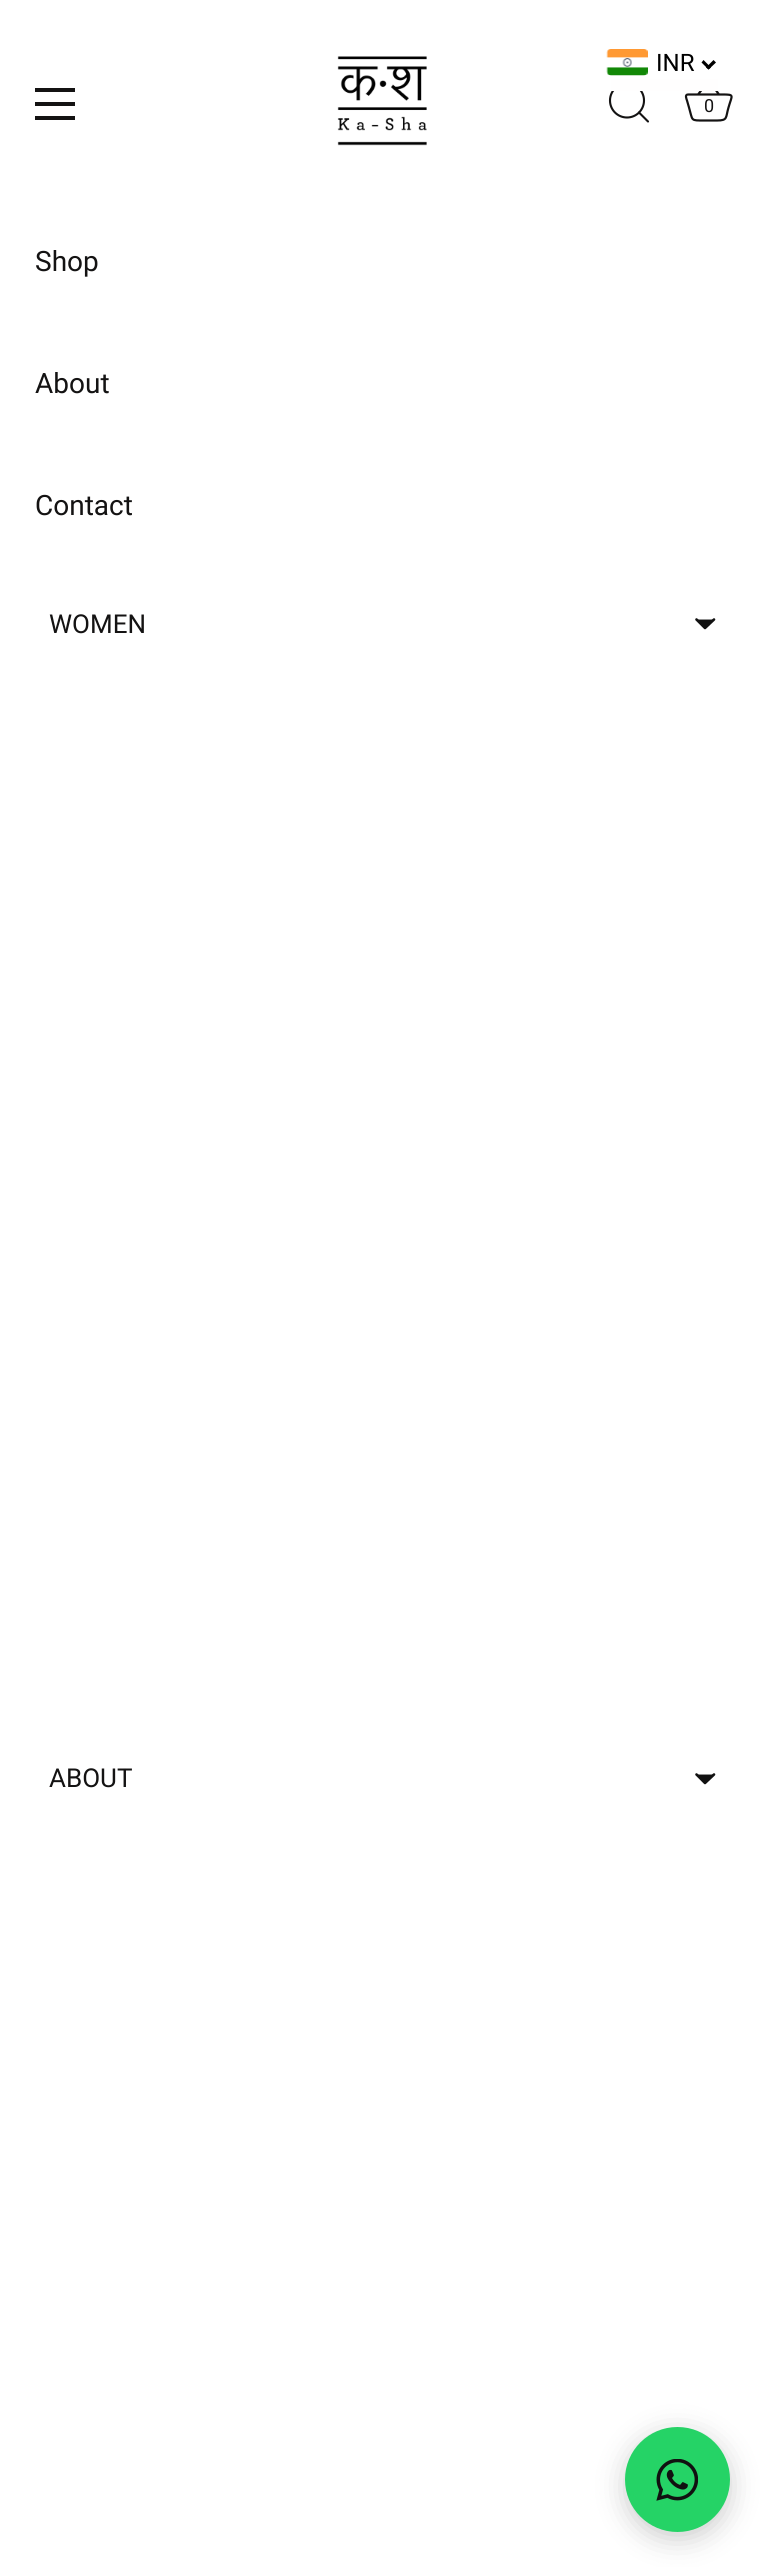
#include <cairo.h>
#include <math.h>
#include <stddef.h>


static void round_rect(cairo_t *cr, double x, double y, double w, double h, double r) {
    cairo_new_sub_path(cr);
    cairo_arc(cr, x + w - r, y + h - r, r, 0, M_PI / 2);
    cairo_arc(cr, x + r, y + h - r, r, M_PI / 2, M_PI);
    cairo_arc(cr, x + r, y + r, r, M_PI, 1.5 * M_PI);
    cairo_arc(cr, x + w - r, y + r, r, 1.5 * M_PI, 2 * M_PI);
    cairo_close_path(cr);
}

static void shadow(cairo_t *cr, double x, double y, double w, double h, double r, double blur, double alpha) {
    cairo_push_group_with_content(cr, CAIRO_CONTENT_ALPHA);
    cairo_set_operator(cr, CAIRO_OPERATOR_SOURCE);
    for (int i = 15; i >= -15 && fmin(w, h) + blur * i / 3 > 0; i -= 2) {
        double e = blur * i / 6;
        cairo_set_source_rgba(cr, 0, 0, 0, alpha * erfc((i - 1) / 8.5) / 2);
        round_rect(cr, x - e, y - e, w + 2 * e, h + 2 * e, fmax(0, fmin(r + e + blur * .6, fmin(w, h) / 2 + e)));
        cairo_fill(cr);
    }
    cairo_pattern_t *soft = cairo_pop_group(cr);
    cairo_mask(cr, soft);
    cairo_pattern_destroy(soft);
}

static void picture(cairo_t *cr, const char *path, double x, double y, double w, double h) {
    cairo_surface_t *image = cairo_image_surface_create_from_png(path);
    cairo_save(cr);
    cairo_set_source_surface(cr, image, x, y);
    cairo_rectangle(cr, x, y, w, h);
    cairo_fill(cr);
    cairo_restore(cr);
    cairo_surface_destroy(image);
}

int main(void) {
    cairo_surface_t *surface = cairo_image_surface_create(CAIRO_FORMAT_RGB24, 764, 2567);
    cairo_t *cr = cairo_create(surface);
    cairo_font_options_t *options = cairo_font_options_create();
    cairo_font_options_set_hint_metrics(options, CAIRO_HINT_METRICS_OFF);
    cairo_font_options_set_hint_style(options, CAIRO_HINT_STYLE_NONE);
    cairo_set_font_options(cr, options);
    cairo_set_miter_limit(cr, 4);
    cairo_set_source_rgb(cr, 1, 1, 1);
    cairo_paint(cr);
    cairo_arc(cr, 627, 100.5, 17, 0, 2 * M_PI);
    cairo_set_source_rgb(cr, 0.082, 0.078, 0.078);
    cairo_set_line_width(cr, 2.1);
    cairo_stroke(cr);
    cairo_new_path(cr);
    cairo_move_to(cr, 688, 94.5);
    cairo_curve_to(cr, 684.5, 94.5, 686.5, 99, 687, 100.5);
    cairo_line_to(cr, 689, 107.5);
    cairo_curve_to(cr, 693, 121, 690, 120.5, 704.5, 120.5);
    cairo_line_to(cr, 717, 120.5);
    cairo_curve_to(cr, 728, 120.5, 725.5, 117.5, 728.5, 107.5);
    cairo_curve_to(cr, 732, 95, 735, 94.5, 722.5, 94.5);
    cairo_line_to(cr, 688, 94.5);
    cairo_move_to(cr, 698, 94.5);
    cairo_line_to(cr, 709, 80.5);
    cairo_line_to(cr, 719, 94.5);
    cairo_set_line_width(cr, 2.2);
    cairo_set_line_join(cr, CAIRO_LINE_JOIN_ROUND);
    cairo_stroke(cr);
    cairo_set_source_rgb(cr, 1, 0.996, 0.996);
    cairo_rectangle(cr, 611, 79, 107, 12);
    cairo_fill(cr);
    picture(cr, "img1.png", 606, 49, 42, 27);
    cairo_select_font_face(cr, "Roboto", CAIRO_FONT_SLANT_NORMAL, CAIRO_FONT_WEIGHT_NORMAL);
    cairo_set_font_size(cr, 24);
    cairo_set_source_rgb(cr, 0, 0, 0);
    cairo_move_to(cr, 656, 71);
    cairo_show_text(cr, "INR");
    cairo_new_path(cr);
    cairo_move_to(cr, 713.5, 60);
    cairo_line_to(cr, 716, 62.5);
    cairo_line_to(cr, 708.5, 69.5);
    cairo_line_to(cr, 706, 67.5);
    cairo_close_path(cr);
    cairo_fill(cr);
    cairo_new_path(cr);
    cairo_move_to(cr, 703.5, 60);
    cairo_line_to(cr, 711, 67.5);
    cairo_line_to(cr, 708.5, 69.5);
    cairo_line_to(cr, 701.5, 62.5);
    cairo_close_path(cr);
    cairo_fill(cr);
    cairo_set_source_rgb(cr, 0.082, 0.078, 0.078);
    cairo_rectangle(cr, 35, 88, 40, 4);
    cairo_fill(cr);
    cairo_rectangle(cr, 35, 102, 40, 4);
    cairo_fill(cr);
    cairo_rectangle(cr, 35, 116, 40, 4);
    cairo_fill(cr);
    picture(cr, "img2.png", 337, 56, 90, 90);
    cairo_new_path(cr);
    cairo_move_to(cr, 648, 121.5);
    cairo_line_to(cr, 639, 112.5);
    cairo_set_line_width(cr, 2.1);
    cairo_set_line_cap(cr, CAIRO_LINE_CAP_ROUND);
    cairo_stroke(cr);
    cairo_set_font_size(cr, 18);
    cairo_move_to(cr, 704, 112);
    cairo_show_text(cr, "0");
    cairo_set_font_size(cr, 28);
    cairo_move_to(cr, 35, 271);
    cairo_show_text(cr, "Shop");
    cairo_move_to(cr, 35, 393);
    cairo_show_text(cr, "About");
    cairo_move_to(cr, 35, 515);
    cairo_show_text(cr, "Contact");
    cairo_set_font_size(cr, 26);
    cairo_move_to(cr, 49, 633);
    cairo_show_text(cr, "WOMEN");
    cairo_set_source_rgb(cr, 0.067, 0.067, 0.067);
    cairo_new_path(cr);
    cairo_move_to(cr, 696.5, 619.5);
    cairo_line_to(cr, 705, 628);
    cairo_line_to(cr, 714, 619.5);
    cairo_fill_preserve(cr);
    cairo_set_line_width(cr, 2.6);
    cairo_stroke(cr);
    cairo_set_source_rgb(cr, 0.082, 0.078, 0.078);
    cairo_move_to(cr, 49, 1787);
    cairo_show_text(cr, "ABOUT");
    cairo_set_source_rgb(cr, 0.067, 0.067, 0.067);
    cairo_new_path(cr);
    cairo_move_to(cr, 696.5, 1774.5);
    cairo_line_to(cr, 705, 1783);
    cairo_line_to(cr, 714, 1774.5);
    cairo_fill_preserve(cr);
    cairo_stroke(cr);
    cairo_set_source_rgb(cr, 0, 0, 0);
    shadow(cr, 625, 2434, 105, 105, 52.5, 14, 0.2);
    cairo_set_source_rgb(cr, 0.145, 0.827, 0.4);
    cairo_arc(cr, 677.5, 2479.5, 52.5, 0, 2 * M_PI);
    cairo_fill(cr);
    picture(cr, "img3.png", 656, 2459, 42, 42);
    cairo_surface_write_to_png(surface, "page.png");
    cairo_font_options_destroy(options);
    cairo_destroy(cr);
    cairo_surface_destroy(surface);
    return 0;
}
